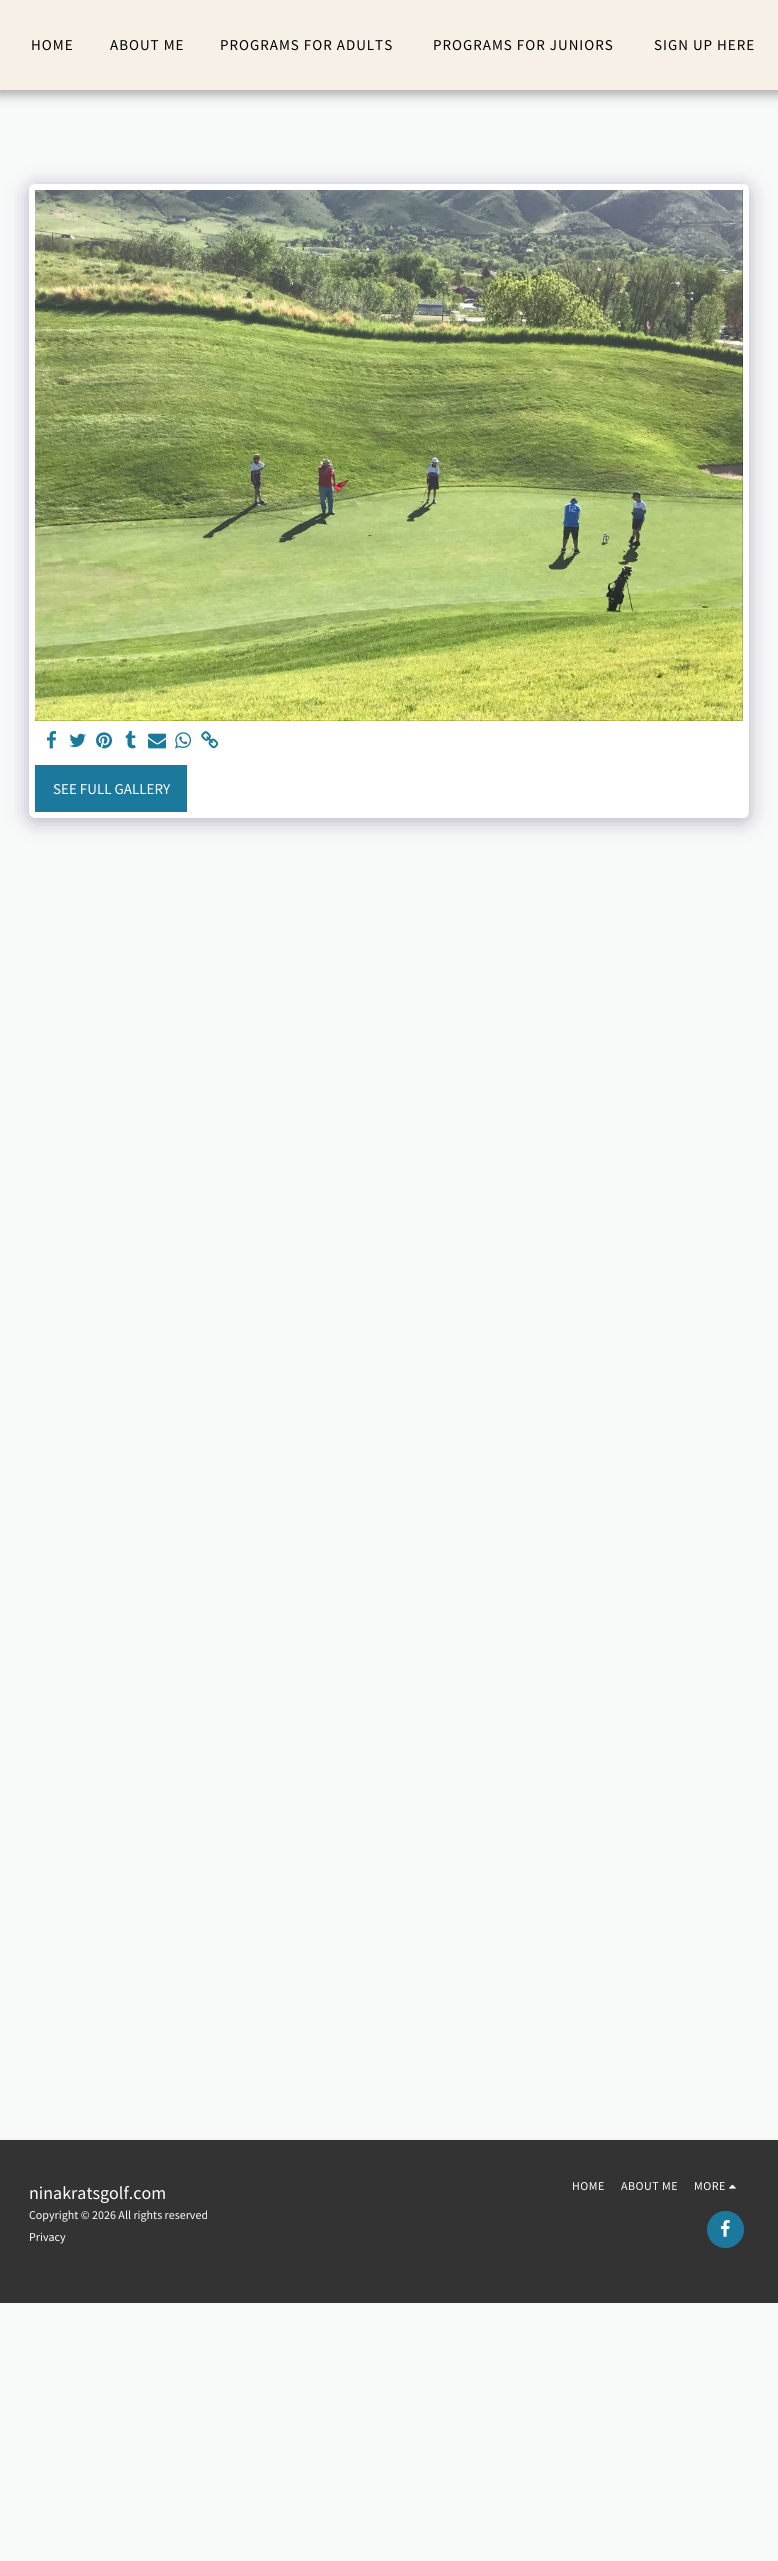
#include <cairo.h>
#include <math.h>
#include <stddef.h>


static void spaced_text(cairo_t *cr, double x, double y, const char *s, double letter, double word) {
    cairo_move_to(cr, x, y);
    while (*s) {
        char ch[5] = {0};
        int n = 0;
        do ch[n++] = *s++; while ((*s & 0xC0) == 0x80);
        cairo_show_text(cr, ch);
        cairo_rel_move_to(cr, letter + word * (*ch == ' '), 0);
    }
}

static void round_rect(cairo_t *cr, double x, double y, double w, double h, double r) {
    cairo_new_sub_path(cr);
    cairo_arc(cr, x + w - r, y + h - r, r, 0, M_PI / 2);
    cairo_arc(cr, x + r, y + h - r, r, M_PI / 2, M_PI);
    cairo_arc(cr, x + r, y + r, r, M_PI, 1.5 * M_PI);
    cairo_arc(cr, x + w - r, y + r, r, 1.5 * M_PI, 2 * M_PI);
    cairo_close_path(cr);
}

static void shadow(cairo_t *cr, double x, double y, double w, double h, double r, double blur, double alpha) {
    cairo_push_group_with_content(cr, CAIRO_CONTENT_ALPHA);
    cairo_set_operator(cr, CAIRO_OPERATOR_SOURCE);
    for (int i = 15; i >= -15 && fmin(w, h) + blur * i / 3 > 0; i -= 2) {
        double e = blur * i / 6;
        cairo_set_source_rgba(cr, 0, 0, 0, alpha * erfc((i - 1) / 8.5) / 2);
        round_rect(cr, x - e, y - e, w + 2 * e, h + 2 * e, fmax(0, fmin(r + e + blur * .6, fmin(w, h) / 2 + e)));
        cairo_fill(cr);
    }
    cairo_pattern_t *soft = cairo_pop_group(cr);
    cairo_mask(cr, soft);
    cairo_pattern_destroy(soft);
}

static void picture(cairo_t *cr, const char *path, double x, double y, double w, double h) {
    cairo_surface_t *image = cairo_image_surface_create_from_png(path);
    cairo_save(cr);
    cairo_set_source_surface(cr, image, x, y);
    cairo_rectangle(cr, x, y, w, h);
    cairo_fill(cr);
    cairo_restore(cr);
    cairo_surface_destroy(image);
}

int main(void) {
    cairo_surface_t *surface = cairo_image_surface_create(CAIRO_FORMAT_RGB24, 778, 2561);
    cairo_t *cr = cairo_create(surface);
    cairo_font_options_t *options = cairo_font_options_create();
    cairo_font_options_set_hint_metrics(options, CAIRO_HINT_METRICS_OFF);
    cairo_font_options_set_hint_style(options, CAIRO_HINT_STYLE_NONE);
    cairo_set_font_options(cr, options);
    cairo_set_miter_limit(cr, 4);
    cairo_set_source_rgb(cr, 0.969, 0.976, 0.973);
    cairo_paint(cr);
    cairo_set_source_rgb(cr, 0, 0, 0);
    shadow(cr, -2, 0, 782, 94, 0, 6, 0.35);
    cairo_set_source_rgb(cr, 0.965, 0.941, 0.906);
    cairo_rectangle(cr, 0, 0, 778, 90);
    cairo_fill(cr);
    cairo_select_font_face(cr, "Source Sans Pro", CAIRO_FONT_SLANT_NORMAL, CAIRO_FONT_WEIGHT_NORMAL);
    cairo_set_font_size(cr, 15);
    cairo_set_source_rgb(cr, 0, 0, 0);
    spaced_text(cr, 31, 50, "HOME", 1, 0);
    spaced_text(cr, 110, 50, "ABOUT ME", 1, 0);
    spaced_text(cr, 220, 50, "PROGRAMS FOR ADULTS", 1, 0);
    spaced_text(cr, 433, 50, "PROGRAMS FOR JUNIORS", 1, 0);
    spaced_text(cr, 654, 50, "SIGN UP HERE", 1, 0);
    cairo_set_source_rgb(cr, 0.302, 0.247, 0.478);
    shadow(cr, 29, 187, 720, 634, 6, 10, 0.4);
    cairo_set_source_rgb(cr, 1, 1, 1);
    round_rect(cr, 29, 184, 720, 634, 6);
    cairo_fill(cr);
    picture(cr, "img1.png", 35, 190, 708, 531);
    picture(cr, "img2.png", 47, 731, 10, 18);
    picture(cr, "img3.png", 69, 733, 17, 15);
    picture(cr, "img4.png", 96, 732, 16, 17);
    picture(cr, "img5.png", 125, 731, 11, 18);
    picture(cr, "img6.png", 148, 733, 18, 16);
    picture(cr, "img7.png", 175, 732, 16, 17);
    picture(cr, "img8.png", 201, 731, 17, 18);
    cairo_set_source_rgb(cr, 0.11, 0.475, 0.62);
    cairo_rectangle(cr, 35, 765, 152, 47);
    cairo_fill(cr);
    cairo_set_source_rgb(cr, 1, 1, 1);
    cairo_move_to(cr, 53, 794);
    cairo_show_text(cr, "SEE FULL GALLERY");
    cairo_set_source_rgb(cr, 0.2, 0.2, 0.2);
    cairo_rectangle(cr, 0, 2140, 778, 163);
    cairo_fill(cr);
    cairo_set_source_rgb(cr, 0.965, 0.941, 0.906);
    cairo_rectangle(cr, 0, 2139, 778, 1);
    cairo_fill(cr);
    cairo_set_font_size(cr, 18);
    cairo_set_source_rgb(cr, 1, 1, 1);
    cairo_move_to(cr, 29, 2199);
    cairo_show_text(cr, "ninakratsgolf.com");
    cairo_set_font_size(cr, 12);
    cairo_move_to(cr, 29, 2219);
    cairo_show_text(cr, "Copyright © 2026 All rights reserved");
    cairo_move_to(cr, 29, 2241);
    cairo_show_text(cr, "Privacy");
    spaced_text(cr, 572, 2190, "HOME", 0.5, 0);
    spaced_text(cr, 621, 2190, "ABOUT ME", 0.5, 0);
    spaced_text(cr, 694, 2190, "MORE", 0.5, 0);
    picture(cr, "img9.png", 729, 2184, 7, 5);
    cairo_set_source_rgb(cr, 0.11, 0.475, 0.62);
    cairo_arc(cr, 725.5, 2229.5, 18, 0, 2 * M_PI);
    cairo_fill_preserve(cr);
    cairo_set_line_width(cr, 1);
    cairo_stroke(cr);
    picture(cr, "img10.png", 720, 2220, 10, 17);
    cairo_surface_write_to_png(surface, "page.png");
    cairo_font_options_destroy(options);
    cairo_destroy(cr);
    cairo_surface_destroy(surface);
    return 0;
}
